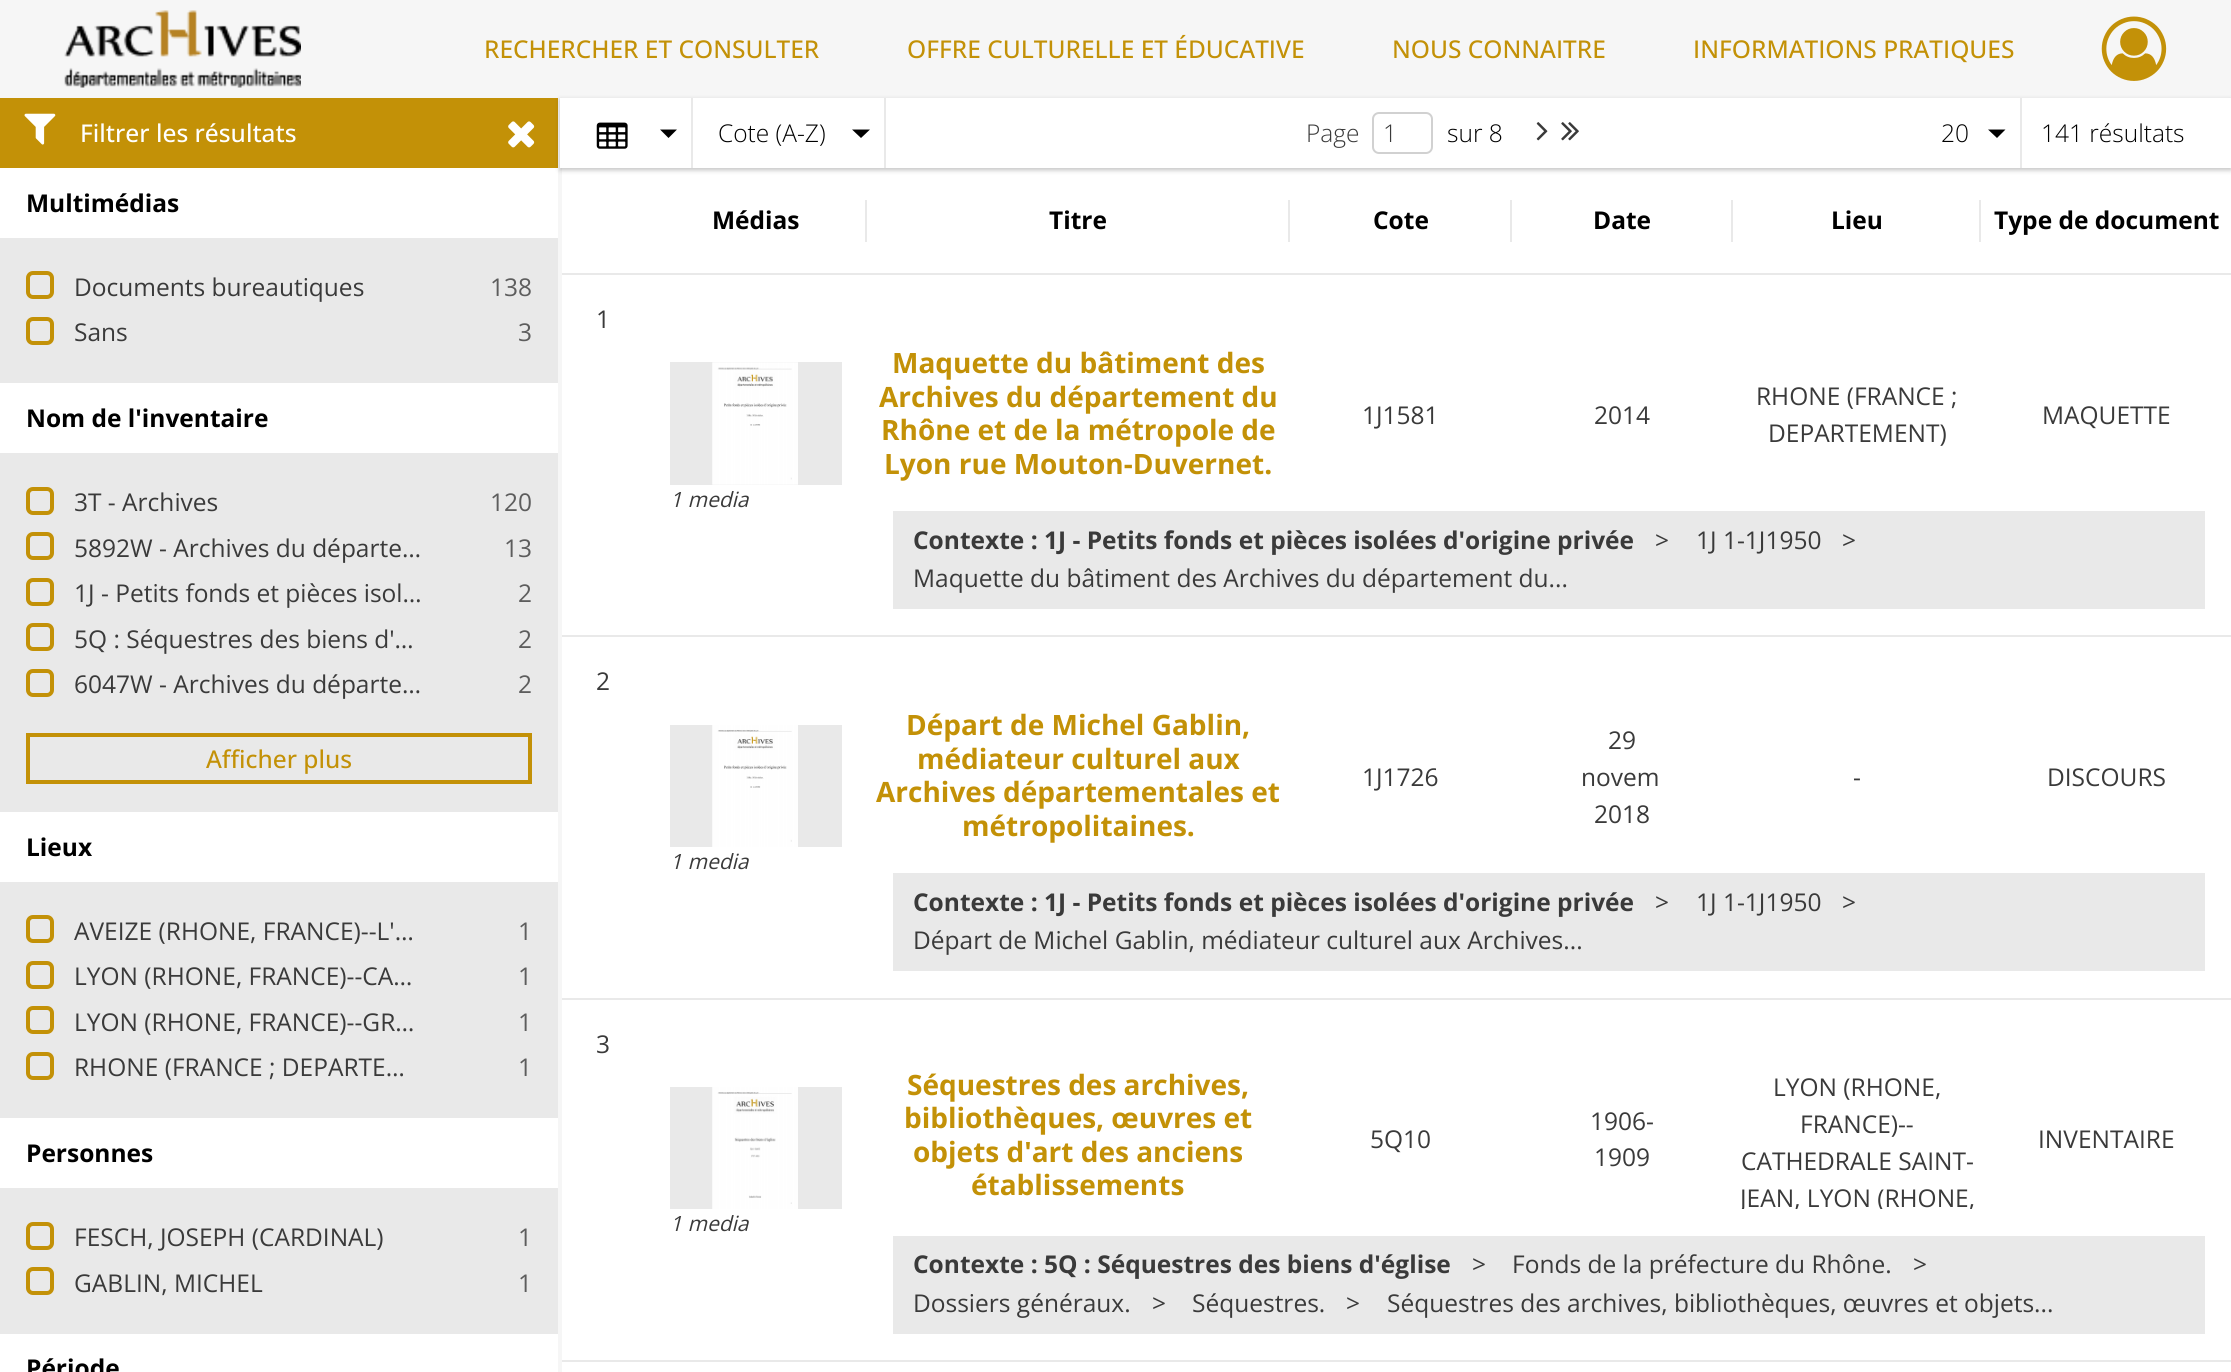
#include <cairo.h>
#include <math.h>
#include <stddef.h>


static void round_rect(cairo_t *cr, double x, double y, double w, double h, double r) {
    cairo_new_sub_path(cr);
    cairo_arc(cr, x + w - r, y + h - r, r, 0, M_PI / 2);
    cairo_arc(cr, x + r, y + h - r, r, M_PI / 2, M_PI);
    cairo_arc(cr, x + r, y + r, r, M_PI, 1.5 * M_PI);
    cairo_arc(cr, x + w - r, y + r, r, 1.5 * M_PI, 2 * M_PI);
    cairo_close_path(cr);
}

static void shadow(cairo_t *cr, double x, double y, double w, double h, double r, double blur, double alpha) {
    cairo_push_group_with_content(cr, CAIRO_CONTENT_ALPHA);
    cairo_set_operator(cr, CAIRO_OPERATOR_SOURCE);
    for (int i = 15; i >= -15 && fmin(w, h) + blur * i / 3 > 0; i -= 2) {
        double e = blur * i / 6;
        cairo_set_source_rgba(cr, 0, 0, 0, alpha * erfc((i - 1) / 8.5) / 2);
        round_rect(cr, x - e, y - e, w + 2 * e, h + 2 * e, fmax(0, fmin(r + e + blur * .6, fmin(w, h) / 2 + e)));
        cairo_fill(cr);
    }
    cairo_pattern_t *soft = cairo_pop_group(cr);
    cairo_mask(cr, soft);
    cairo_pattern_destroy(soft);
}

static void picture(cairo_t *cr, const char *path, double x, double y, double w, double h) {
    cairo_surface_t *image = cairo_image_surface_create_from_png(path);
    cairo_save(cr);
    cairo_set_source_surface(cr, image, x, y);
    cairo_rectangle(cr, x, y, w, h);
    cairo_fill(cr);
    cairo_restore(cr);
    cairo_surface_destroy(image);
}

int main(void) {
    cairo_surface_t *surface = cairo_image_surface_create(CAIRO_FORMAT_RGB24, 2231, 1372);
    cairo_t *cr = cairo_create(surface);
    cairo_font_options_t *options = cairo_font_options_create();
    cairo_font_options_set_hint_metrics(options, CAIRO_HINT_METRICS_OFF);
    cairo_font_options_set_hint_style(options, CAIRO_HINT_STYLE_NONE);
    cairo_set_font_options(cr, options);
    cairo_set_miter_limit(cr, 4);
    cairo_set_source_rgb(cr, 1, 1, 1);
    cairo_paint(cr);
    cairo_set_source_rgb(cr, 0.961, 0.961, 0.961);
    cairo_rectangle(cr, 0, 0, 2231, 98);
    cairo_fill(cr);
    picture(cr, "img1.png", 64, 10, 237, 78);
    cairo_select_font_face(cr, "Open Sans Medium", CAIRO_FONT_SLANT_NORMAL, CAIRO_FONT_WEIGHT_NORMAL);
    cairo_set_font_size(cr, 24.5);
    cairo_set_source_rgb(cr, 0.765, 0.569, 0.031);
    cairo_move_to(cr, 484, 58);
    cairo_show_text(cr, "RECHERCHER ET CONSULTER");
    cairo_move_to(cr, 907, 58);
    cairo_show_text(cr, "OFFRE CULTURELLE ET ÉDUCATIVE");
    cairo_move_to(cr, 1392, 58);
    cairo_show_text(cr, "NOUS CONNAITRE");
    cairo_move_to(cr, 1693, 58);
    cairo_show_text(cr, "INFORMATIONS PRATIQUES");
    picture(cr, "img2.png", 2101, 16, 66, 65);
    cairo_set_source_rgb(cr, 0.914, 0.914, 0.914);
    cairo_rectangle(cr, 0, 238, 558, 1096);
    cairo_fill(cr);
    cairo_set_source_rgb(cr, 0.961, 0.961, 0.961);
    cairo_rectangle(cr, 558, 98, 2, 1274);
    cairo_fill(cr);
    cairo_set_source_rgb(cr, 0.765, 0.569, 0.031);
    cairo_rectangle(cr, 0, 98, 558, 70);
    cairo_fill(cr);
    picture(cr, "img3.png", 24, 113, 32, 32);
    cairo_set_source_rgb(cr, 1, 1, 1);
    cairo_move_to(cr, 80, 142);
    cairo_show_text(cr, "Filtrer les résultats");
    picture(cr, "img4.png", 508, 121, 27, 27);
    cairo_select_font_face(cr, "Open Sans", CAIRO_FONT_SLANT_NORMAL, CAIRO_FONT_WEIGHT_BOLD);
    cairo_set_source_rgb(cr, 0, 0, 0);
    cairo_move_to(cr, 26, 212);
    cairo_show_text(cr, "Multimédias");
    round_rect(cr, 28, 273, 24, 24, 5);
    cairo_set_source_rgb(cr, 0.765, 0.569, 0.031);
    cairo_set_line_width(cr, 4);
    cairo_stroke(cr);
    cairo_select_font_face(cr, "Open Sans", CAIRO_FONT_SLANT_NORMAL, CAIRO_FONT_WEIGHT_NORMAL);
    cairo_set_source_rgb(cr, 0.227, 0.227, 0.227);
    cairo_move_to(cr, 74, 296);
    cairo_show_text(cr, "Documents bureautiques");
    cairo_set_source_rgb(cr, 0.365, 0.365, 0.365);
    cairo_move_to(cr, 490, 296);
    cairo_show_text(cr, "138");
    round_rect(cr, 28, 319, 24, 24, 5);
    cairo_set_source_rgb(cr, 0.765, 0.569, 0.031);
    cairo_stroke(cr);
    cairo_set_source_rgb(cr, 0.227, 0.227, 0.227);
    cairo_move_to(cr, 74, 341);
    cairo_show_text(cr, "Sans");
    cairo_set_source_rgb(cr, 0.365, 0.365, 0.365);
    cairo_move_to(cr, 518, 341);
    cairo_show_text(cr, "3");
    cairo_set_source_rgb(cr, 1, 1, 1);
    cairo_rectangle(cr, 0, 383, 558, 70);
    cairo_fill(cr);
    cairo_select_font_face(cr, "Open Sans", CAIRO_FONT_SLANT_NORMAL, CAIRO_FONT_WEIGHT_BOLD);
    cairo_set_source_rgb(cr, 0, 0, 0);
    cairo_move_to(cr, 26, 427);
    cairo_show_text(cr, "Nom de l'inventaire");
    round_rect(cr, 28, 489, 24, 24, 5);
    cairo_set_source_rgb(cr, 0.765, 0.569, 0.031);
    cairo_stroke(cr);
    cairo_select_font_face(cr, "Open Sans", CAIRO_FONT_SLANT_NORMAL, CAIRO_FONT_WEIGHT_NORMAL);
    cairo_set_source_rgb(cr, 0.227, 0.227, 0.227);
    cairo_move_to(cr, 74, 511);
    cairo_show_text(cr, "3T - Archives");
    cairo_set_source_rgb(cr, 0.365, 0.365, 0.365);
    cairo_move_to(cr, 490, 511);
    cairo_show_text(cr, "120");
    round_rect(cr, 28, 534, 24, 24, 5);
    cairo_set_source_rgb(cr, 0.765, 0.569, 0.031);
    cairo_stroke(cr);
    cairo_set_source_rgb(cr, 0.227, 0.227, 0.227);
    cairo_move_to(cr, 74, 557);
    cairo_show_text(cr, "5892W - Archives du départe…");
    cairo_set_source_rgb(cr, 0.365, 0.365, 0.365);
    cairo_move_to(cr, 504, 557);
    cairo_show_text(cr, "13");
    round_rect(cr, 28, 580, 24, 24, 5);
    cairo_set_source_rgb(cr, 0.765, 0.569, 0.031);
    cairo_stroke(cr);
    cairo_set_source_rgb(cr, 0.227, 0.227, 0.227);
    cairo_move_to(cr, 74, 602);
    cairo_show_text(cr, "1J - Petits fonds et pièces isol…");
    cairo_set_source_rgb(cr, 0.365, 0.365, 0.365);
    cairo_move_to(cr, 518, 602);
    cairo_show_text(cr, "2");
    round_rect(cr, 28, 625, 24, 24, 5);
    cairo_set_source_rgb(cr, 0.765, 0.569, 0.031);
    cairo_stroke(cr);
    cairo_set_source_rgb(cr, 0.227, 0.227, 0.227);
    cairo_move_to(cr, 74, 648);
    cairo_show_text(cr, "5Q : Séquestres des biens d'…");
    cairo_set_source_rgb(cr, 0.365, 0.365, 0.365);
    cairo_move_to(cr, 518, 648);
    cairo_show_text(cr, "2");
    round_rect(cr, 28, 671, 24, 24, 5);
    cairo_set_source_rgb(cr, 0.765, 0.569, 0.031);
    cairo_stroke(cr);
    cairo_set_source_rgb(cr, 0.227, 0.227, 0.227);
    cairo_move_to(cr, 74, 693);
    cairo_show_text(cr, "6047W - Archives du départe…");
    cairo_set_source_rgb(cr, 0.365, 0.365, 0.365);
    cairo_move_to(cr, 518, 693);
    cairo_show_text(cr, "2");
    cairo_rectangle(cr, 28, 735, 502, 47);
    cairo_set_source_rgb(cr, 0.765, 0.569, 0.031);
    cairo_stroke(cr);
    cairo_select_font_face(cr, "Open Sans Medium", CAIRO_FONT_SLANT_NORMAL, CAIRO_FONT_WEIGHT_NORMAL);
    cairo_move_to(cr, 206, 768);
    cairo_show_text(cr, "Afficher plus");
    cairo_set_source_rgb(cr, 1, 1, 1);
    cairo_rectangle(cr, 0, 812, 558, 70);
    cairo_fill(cr);
    cairo_select_font_face(cr, "Open Sans", CAIRO_FONT_SLANT_NORMAL, CAIRO_FONT_WEIGHT_BOLD);
    cairo_set_source_rgb(cr, 0, 0, 0);
    cairo_move_to(cr, 26, 856);
    cairo_show_text(cr, "Lieux");
    round_rect(cr, 28, 917, 24, 24, 5);
    cairo_set_source_rgb(cr, 0.765, 0.569, 0.031);
    cairo_stroke(cr);
    cairo_select_font_face(cr, "Open Sans", CAIRO_FONT_SLANT_NORMAL, CAIRO_FONT_WEIGHT_NORMAL);
    cairo_set_source_rgb(cr, 0.227, 0.227, 0.227);
    cairo_move_to(cr, 74, 940);
    cairo_show_text(cr, "AVEIZE (RHONE, FRANCE)--L'…");
    cairo_set_source_rgb(cr, 0.365, 0.365, 0.365);
    cairo_move_to(cr, 518, 940);
    cairo_show_text(cr, "1");
    round_rect(cr, 28, 963, 24, 24, 5);
    cairo_set_source_rgb(cr, 0.765, 0.569, 0.031);
    cairo_stroke(cr);
    cairo_set_source_rgb(cr, 0.227, 0.227, 0.227);
    cairo_move_to(cr, 74, 985);
    cairo_show_text(cr, "LYON (RHONE, FRANCE)--CA…");
    cairo_set_source_rgb(cr, 0.365, 0.365, 0.365);
    cairo_move_to(cr, 518, 985);
    cairo_show_text(cr, "1");
    round_rect(cr, 28, 1008, 24, 24, 5);
    cairo_set_source_rgb(cr, 0.765, 0.569, 0.031);
    cairo_stroke(cr);
    cairo_set_source_rgb(cr, 0.227, 0.227, 0.227);
    cairo_move_to(cr, 74, 1031);
    cairo_show_text(cr, "LYON (RHONE, FRANCE)--GR…");
    cairo_set_source_rgb(cr, 0.365, 0.365, 0.365);
    cairo_move_to(cr, 518, 1031);
    cairo_show_text(cr, "1");
    round_rect(cr, 28, 1054, 24, 24, 5);
    cairo_set_source_rgb(cr, 0.765, 0.569, 0.031);
    cairo_stroke(cr);
    cairo_set_source_rgb(cr, 0.227, 0.227, 0.227);
    cairo_move_to(cr, 74, 1076);
    cairo_show_text(cr, "RHONE (FRANCE ; DEPARTE…");
    cairo_set_source_rgb(cr, 0.365, 0.365, 0.365);
    cairo_move_to(cr, 518, 1076);
    cairo_show_text(cr, "1");
    cairo_set_source_rgb(cr, 1, 1, 1);
    cairo_rectangle(cr, 0, 1118, 558, 70);
    cairo_fill(cr);
    cairo_select_font_face(cr, "Open Sans", CAIRO_FONT_SLANT_NORMAL, CAIRO_FONT_WEIGHT_BOLD);
    cairo_set_source_rgb(cr, 0, 0, 0);
    cairo_move_to(cr, 26, 1162);
    cairo_show_text(cr, "Personnes");
    round_rect(cr, 28, 1224, 24, 24, 5);
    cairo_set_source_rgb(cr, 0.765, 0.569, 0.031);
    cairo_stroke(cr);
    cairo_select_font_face(cr, "Open Sans", CAIRO_FONT_SLANT_NORMAL, CAIRO_FONT_WEIGHT_NORMAL);
    cairo_set_source_rgb(cr, 0.227, 0.227, 0.227);
    cairo_move_to(cr, 74, 1246);
    cairo_show_text(cr, "FESCH, JOSEPH (CARDINAL)");
    cairo_set_source_rgb(cr, 0.365, 0.365, 0.365);
    cairo_move_to(cr, 518, 1246);
    cairo_show_text(cr, "1");
    round_rect(cr, 28, 1269, 24, 24, 5);
    cairo_set_source_rgb(cr, 0.765, 0.569, 0.031);
    cairo_stroke(cr);
    cairo_set_source_rgb(cr, 0.227, 0.227, 0.227);
    cairo_move_to(cr, 74, 1292);
    cairo_show_text(cr, "GABLIN, MICHEL");
    cairo_set_source_rgb(cr, 0.365, 0.365, 0.365);
    cairo_move_to(cr, 518, 1292);
    cairo_show_text(cr, "1");
    cairo_select_font_face(cr, "Open Sans", CAIRO_FONT_SLANT_NORMAL, CAIRO_FONT_WEIGHT_BOLD);
    cairo_set_source_rgb(cr, 0, 0, 0);
    cairo_move_to(cr, 26, 1377);
    cairo_show_text(cr, "Période");
    cairo_set_source_rgb(cr, 0.961, 0.961, 0.961);
    cairo_rectangle(cr, 560, 168, 2, 1204);
    cairo_fill(cr);
    cairo_save(cr);
    cairo_set_fill_rule(cr, CAIRO_FILL_RULE_EVEN_ODD);
    cairo_new_path(cr);
    cairo_move_to(cr, 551, 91);
    cairo_line_to(cr, 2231, 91);
    cairo_line_to(cr, 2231, 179);
    cairo_line_to(cr, 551, 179);
    cairo_close_path(cr);
    cairo_move_to(cr, 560, 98);
    cairo_line_to(cr, 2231, 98);
    cairo_line_to(cr, 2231, 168);
    cairo_line_to(cr, 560, 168);
    cairo_close_path(cr);
    cairo_clip(cr);
    cairo_set_source_rgb(cr, 0, 0, 0);
    shadow(cr, 560, 100, 1671, 70, 0, 2.5, 0.25);
    cairo_restore(cr);
    cairo_set_source_rgb(cr, 0.914, 0.914, 0.914);
    cairo_rectangle(cr, 691, 98, 2, 70);
    cairo_fill(cr);
    picture(cr, "img5.png", 596, 122, 32, 27);
    cairo_set_source_rgb(cr, 0, 0, 0);
    cairo_new_path(cr);
    cairo_move_to(cr, 660, 129.5);
    cairo_line_to(cr, 677, 129.5);
    cairo_line_to(cr, 668.5, 138);
    cairo_close_path(cr);
    cairo_fill(cr);
    cairo_set_source_rgb(cr, 0.914, 0.914, 0.914);
    cairo_rectangle(cr, 884, 98, 2, 70);
    cairo_fill(cr);
    cairo_select_font_face(cr, "Open Sans Light", CAIRO_FONT_SLANT_NORMAL, CAIRO_FONT_WEIGHT_NORMAL);
    cairo_set_source_rgb(cr, 0, 0, 0);
    cairo_move_to(cr, 718, 142);
    cairo_show_text(cr, "Cote (A-Z)");
    cairo_new_path(cr);
    cairo_move_to(cr, 852, 129.5);
    cairo_line_to(cr, 870, 129.5);
    cairo_line_to(cr, 861, 138);
    cairo_close_path(cr);
    cairo_fill(cr);
    cairo_set_source_rgb(cr, 0.227, 0.227, 0.227);
    cairo_move_to(cr, 1306, 142);
    cairo_show_text(cr, "Page");
    round_rect(cr, 1373, 113, 59, 40, 6);
    cairo_set_source_rgb(cr, 0.82, 0.82, 0.82);
    cairo_set_line_width(cr, 2);
    cairo_stroke(cr);
    cairo_set_source_rgb(cr, 0.227, 0.227, 0.227);
    cairo_move_to(cr, 1383, 142);
    cairo_show_text(cr, "1");
    cairo_set_source_rgb(cr, 0, 0, 0);
    cairo_move_to(cr, 1447, 142);
    cairo_show_text(cr, "sur 8");
    picture(cr, "img6.png", 1536, 122, 12, 19);
    picture(cr, "img7.png", 1561, 122, 18, 19);
    cairo_set_source_rgb(cr, 0.914, 0.914, 0.914);
    cairo_rectangle(cr, 2020, 98, 2, 70);
    cairo_fill(cr);
    cairo_set_source_rgb(cr, 0, 0, 0);
    cairo_move_to(cr, 1941, 142);
    cairo_show_text(cr, "20");
    cairo_new_path(cr);
    cairo_move_to(cr, 1988, 129.5);
    cairo_line_to(cr, 2005.5, 129.5);
    cairo_line_to(cr, 1997, 138);
    cairo_close_path(cr);
    cairo_fill(cr);
    cairo_move_to(cr, 2041, 142);
    cairo_show_text(cr, "141 résultats");
    cairo_select_font_face(cr, "Open Sans", CAIRO_FONT_SLANT_NORMAL, CAIRO_FONT_WEIGHT_BOLD);
    cairo_move_to(cr, 712, 229);
    cairo_show_text(cr, "Médias");
    cairo_set_source_rgb(cr, 0.914, 0.914, 0.914);
    cairo_rectangle(cr, 865, 200, 2, 42);
    cairo_fill(cr);
    cairo_set_source_rgb(cr, 0, 0, 0);
    cairo_move_to(cr, 1049, 229);
    cairo_show_text(cr, "Titre");
    cairo_set_source_rgb(cr, 0.914, 0.914, 0.914);
    cairo_rectangle(cr, 1288, 200, 2, 42);
    cairo_fill(cr);
    cairo_set_source_rgb(cr, 0, 0, 0);
    cairo_move_to(cr, 1373, 229);
    cairo_show_text(cr, "Cote");
    cairo_set_source_rgb(cr, 0.914, 0.914, 0.914);
    cairo_rectangle(cr, 1510, 200, 2, 42);
    cairo_fill(cr);
    cairo_set_source_rgb(cr, 0, 0, 0);
    cairo_move_to(cr, 1593, 229);
    cairo_show_text(cr, "Date");
    cairo_set_source_rgb(cr, 0.914, 0.914, 0.914);
    cairo_rectangle(cr, 1731, 200, 2, 42);
    cairo_fill(cr);
    cairo_set_source_rgb(cr, 0, 0, 0);
    cairo_move_to(cr, 1831, 229);
    cairo_show_text(cr, "Lieu");
    cairo_set_source_rgb(cr, 0.914, 0.914, 0.914);
    cairo_rectangle(cr, 1979, 200, 2, 42);
    cairo_fill(cr);
    cairo_rectangle(cr, 562, 273, 1669, 2);
    cairo_fill(cr);
    cairo_set_source_rgb(cr, 0, 0, 0);
    cairo_move_to(cr, 1994, 229);
    cairo_show_text(cr, "Type de document");
    cairo_select_font_face(cr, "Open Sans", CAIRO_FONT_SLANT_NORMAL, CAIRO_FONT_WEIGHT_NORMAL);
    cairo_set_source_rgb(cr, 0.227, 0.227, 0.227);
    cairo_move_to(cr, 596, 328);
    cairo_show_text(cr, "1");
    cairo_select_font_face(cr, "Open Sans", CAIRO_FONT_SLANT_NORMAL, CAIRO_FONT_WEIGHT_BOLD);
    cairo_set_font_size(cr, 28);
    cairo_set_source_rgb(cr, 0.765, 0.569, 0.031);
    cairo_move_to(cr, 892, 373);
    cairo_show_text(cr, "Maquette du bâtiment des");
    cairo_move_to(cr, 879, 407);
    cairo_show_text(cr, "Archives du département du");
    cairo_move_to(cr, 881, 440);
    cairo_show_text(cr, "Rhône et de la métropole de");
    cairo_move_to(cr, 884, 474);
    cairo_show_text(cr, "Lyon rue Mouton-Duvernet.");
    cairo_select_font_face(cr, "Open Sans", CAIRO_FONT_SLANT_NORMAL, CAIRO_FONT_WEIGHT_NORMAL);
    cairo_set_font_size(cr, 24.5);
    cairo_set_source_rgb(cr, 0.227, 0.227, 0.227);
    cairo_move_to(cr, 1362, 424);
    cairo_show_text(cr, "1J1581");
    cairo_move_to(cr, 1594, 424);
    cairo_show_text(cr, "2014");
    cairo_move_to(cr, 1756, 405);
    cairo_show_text(cr, "RHONE (FRANCE ;");
    cairo_move_to(cr, 1768, 442);
    cairo_show_text(cr, "DEPARTEMENT)");
    cairo_move_to(cr, 2042, 424);
    cairo_show_text(cr, "MAQUETTE");
    cairo_set_source_rgb(cr, 0.914, 0.914, 0.914);
    cairo_rectangle(cr, 670, 362, 172, 123);
    cairo_fill(cr);
    picture(cr, "img8.png", 712, 362, 86, 123);
    cairo_select_font_face(cr, "Open Sans", CAIRO_FONT_SLANT_ITALIC, CAIRO_FONT_WEIGHT_NORMAL);
    cairo_set_font_size(cr, 21);
    cairo_set_source_rgb(cr, 0.227, 0.227, 0.227);
    cairo_move_to(cr, 670, 507);
    cairo_show_text(cr, "1 media");
    cairo_set_source_rgb(cr, 0.914, 0.914, 0.914);
    cairo_rectangle(cr, 562, 635, 1669, 2);
    cairo_fill(cr);
    cairo_rectangle(cr, 893, 511, 1312, 98);
    cairo_fill(cr);
    cairo_select_font_face(cr, "Open Sans", CAIRO_FONT_SLANT_NORMAL, CAIRO_FONT_WEIGHT_BOLD);
    cairo_set_font_size(cr, 24.5);
    cairo_set_source_rgb(cr, 0.227, 0.227, 0.227);
    cairo_move_to(cr, 913, 549);
    cairo_show_text(cr, "Contexte : 1J - Petits fonds et pièces isolées d'origine privée");
    cairo_select_font_face(cr, "Open Sans", CAIRO_FONT_SLANT_NORMAL, CAIRO_FONT_WEIGHT_NORMAL);
    cairo_move_to(cr, 1655, 549);
    cairo_show_text(cr, ">");
    cairo_move_to(cr, 1696, 549);
    cairo_show_text(cr, "1J 1-1J1950");
    cairo_move_to(cr, 1842, 549);
    cairo_show_text(cr, ">");
    cairo_move_to(cr, 913, 587);
    cairo_show_text(cr, "Maquette du bâtiment des Archives du département du...");
    cairo_move_to(cr, 596, 690);
    cairo_show_text(cr, "2");
    cairo_select_font_face(cr, "Open Sans", CAIRO_FONT_SLANT_NORMAL, CAIRO_FONT_WEIGHT_BOLD);
    cairo_set_font_size(cr, 28);
    cairo_set_source_rgb(cr, 0.765, 0.569, 0.031);
    cairo_move_to(cr, 906, 735);
    cairo_show_text(cr, "Départ de Michel Gablin,");
    cairo_move_to(cr, 917, 769);
    cairo_show_text(cr, "médiateur culturel aux");
    cairo_move_to(cr, 876, 802);
    cairo_show_text(cr, "Archives départementales et");
    cairo_move_to(cr, 962, 836);
    cairo_show_text(cr, "métropolitaines.");
    cairo_select_font_face(cr, "Open Sans", CAIRO_FONT_SLANT_NORMAL, CAIRO_FONT_WEIGHT_NORMAL);
    cairo_set_font_size(cr, 24.5);
    cairo_set_source_rgb(cr, 0.227, 0.227, 0.227);
    cairo_move_to(cr, 1362, 786);
    cairo_show_text(cr, "1J1726");
    cairo_move_to(cr, 1608, 749);
    cairo_show_text(cr, "29");
    cairo_move_to(cr, 1581, 786);
    cairo_show_text(cr, "novem");
    cairo_move_to(cr, 1594, 823);
    cairo_show_text(cr, "2018");
    cairo_move_to(cr, 1853, 786);
    cairo_show_text(cr, "-");
    cairo_move_to(cr, 2047, 786);
    cairo_show_text(cr, "DISCOURS");
    cairo_set_source_rgb(cr, 0.914, 0.914, 0.914);
    cairo_rectangle(cr, 670, 725, 172, 122);
    cairo_fill(cr);
    picture(cr, "img9.png", 712, 725, 86, 122);
    cairo_select_font_face(cr, "Open Sans", CAIRO_FONT_SLANT_ITALIC, CAIRO_FONT_WEIGHT_NORMAL);
    cairo_set_font_size(cr, 21);
    cairo_set_source_rgb(cr, 0.227, 0.227, 0.227);
    cairo_move_to(cr, 670, 869);
    cairo_show_text(cr, "1 media");
    cairo_set_source_rgb(cr, 0.914, 0.914, 0.914);
    cairo_rectangle(cr, 562, 998, 1669, 2);
    cairo_fill(cr);
    cairo_rectangle(cr, 893, 873, 1312, 98);
    cairo_fill(cr);
    cairo_select_font_face(cr, "Open Sans", CAIRO_FONT_SLANT_NORMAL, CAIRO_FONT_WEIGHT_BOLD);
    cairo_set_font_size(cr, 24.5);
    cairo_set_source_rgb(cr, 0.227, 0.227, 0.227);
    cairo_move_to(cr, 913, 911);
    cairo_show_text(cr, "Contexte : 1J - Petits fonds et pièces isolées d'origine privée");
    cairo_select_font_face(cr, "Open Sans", CAIRO_FONT_SLANT_NORMAL, CAIRO_FONT_WEIGHT_NORMAL);
    cairo_move_to(cr, 1655, 911);
    cairo_show_text(cr, ">");
    cairo_move_to(cr, 1696, 911);
    cairo_show_text(cr, "1J 1-1J1950");
    cairo_move_to(cr, 1842, 911);
    cairo_show_text(cr, ">");
    cairo_move_to(cr, 913, 949);
    cairo_show_text(cr, "Départ de Michel Gablin, médiateur culturel aux Archives...");
    cairo_move_to(cr, 596, 1053);
    cairo_show_text(cr, "3");
    cairo_select_font_face(cr, "Open Sans", CAIRO_FONT_SLANT_NORMAL, CAIRO_FONT_WEIGHT_BOLD);
    cairo_set_font_size(cr, 28);
    cairo_set_source_rgb(cr, 0.765, 0.569, 0.031);
    cairo_move_to(cr, 907, 1095);
    cairo_show_text(cr, "Séquestres des archives,");
    cairo_move_to(cr, 904, 1128);
    cairo_show_text(cr, "bibliothèques, œuvres et");
    cairo_move_to(cr, 913, 1162);
    cairo_show_text(cr, "objets d'art des anciens");
    cairo_move_to(cr, 971, 1195);
    cairo_show_text(cr, "établissements");
    cairo_select_font_face(cr, "Open Sans", CAIRO_FONT_SLANT_NORMAL, CAIRO_FONT_WEIGHT_NORMAL);
    cairo_set_font_size(cr, 24.5);
    cairo_set_source_rgb(cr, 0.227, 0.227, 0.227);
    cairo_move_to(cr, 1370, 1148);
    cairo_show_text(cr, "5Q10");
    cairo_move_to(cr, 1590, 1130);
    cairo_show_text(cr, "1906-");
    cairo_move_to(cr, 1594, 1166);
    cairo_show_text(cr, "1909");
    cairo_move_to(cr, 1773, 1096);
    cairo_show_text(cr, "LYON (RHONE,");
    cairo_move_to(cr, 1800, 1133);
    cairo_show_text(cr, "FRANCE)--");
    cairo_move_to(cr, 1741, 1170);
    cairo_show_text(cr, "CATHEDRALE SAINT-");
    cairo_save(cr);
    cairo_rectangle(cr, 1733, 1069, 248, 140);
    cairo_clip(cr);
    cairo_move_to(cr, 1740, 1207);
    cairo_show_text(cr, "JEAN, LYON (RHONE,");
    cairo_restore(cr);
    cairo_move_to(cr, 2038, 1148);
    cairo_show_text(cr, "INVENTAIRE");
    cairo_set_source_rgb(cr, 0.914, 0.914, 0.914);
    cairo_rectangle(cr, 670, 1087, 172, 122);
    cairo_fill(cr);
    picture(cr, "img10.png", 712, 1087, 86, 122);
    cairo_select_font_face(cr, "Open Sans", CAIRO_FONT_SLANT_ITALIC, CAIRO_FONT_WEIGHT_NORMAL);
    cairo_set_font_size(cr, 21);
    cairo_set_source_rgb(cr, 0.227, 0.227, 0.227);
    cairo_move_to(cr, 670, 1231);
    cairo_show_text(cr, "1 media");
    cairo_set_source_rgb(cr, 0.914, 0.914, 0.914);
    cairo_rectangle(cr, 562, 1360, 1669, 2);
    cairo_fill(cr);
    cairo_rectangle(cr, 893, 1236, 1312, 98);
    cairo_fill(cr);
    cairo_select_font_face(cr, "Open Sans", CAIRO_FONT_SLANT_NORMAL, CAIRO_FONT_WEIGHT_BOLD);
    cairo_set_font_size(cr, 24.5);
    cairo_set_source_rgb(cr, 0.227, 0.227, 0.227);
    cairo_move_to(cr, 913, 1273);
    cairo_show_text(cr, "Contexte : 5Q : Séquestres des biens d'église");
    cairo_select_font_face(cr, "Open Sans", CAIRO_FONT_SLANT_NORMAL, CAIRO_FONT_WEIGHT_NORMAL);
    cairo_move_to(cr, 1472, 1273);
    cairo_show_text(cr, ">");
    cairo_move_to(cr, 1512, 1273);
    cairo_show_text(cr, "Fonds de la préfecture du Rhône.");
    cairo_move_to(cr, 1913, 1273);
    cairo_show_text(cr, ">");
    cairo_move_to(cr, 913, 1312);
    cairo_show_text(cr, "Dossiers généraux.");
    cairo_move_to(cr, 1152, 1312);
    cairo_show_text(cr, ">");
    cairo_move_to(cr, 1192, 1312);
    cairo_show_text(cr, "Séquestres.");
    cairo_move_to(cr, 1346, 1312);
    cairo_show_text(cr, ">");
    cairo_move_to(cr, 1387, 1312);
    cairo_show_text(cr, "Séquestres des archives, bibliothèques, œuvres et objets...");
    cairo_surface_write_to_png(surface, "page.png");
    cairo_font_options_destroy(options);
    cairo_destroy(cr);
    cairo_surface_destroy(surface);
    return 0;
}
